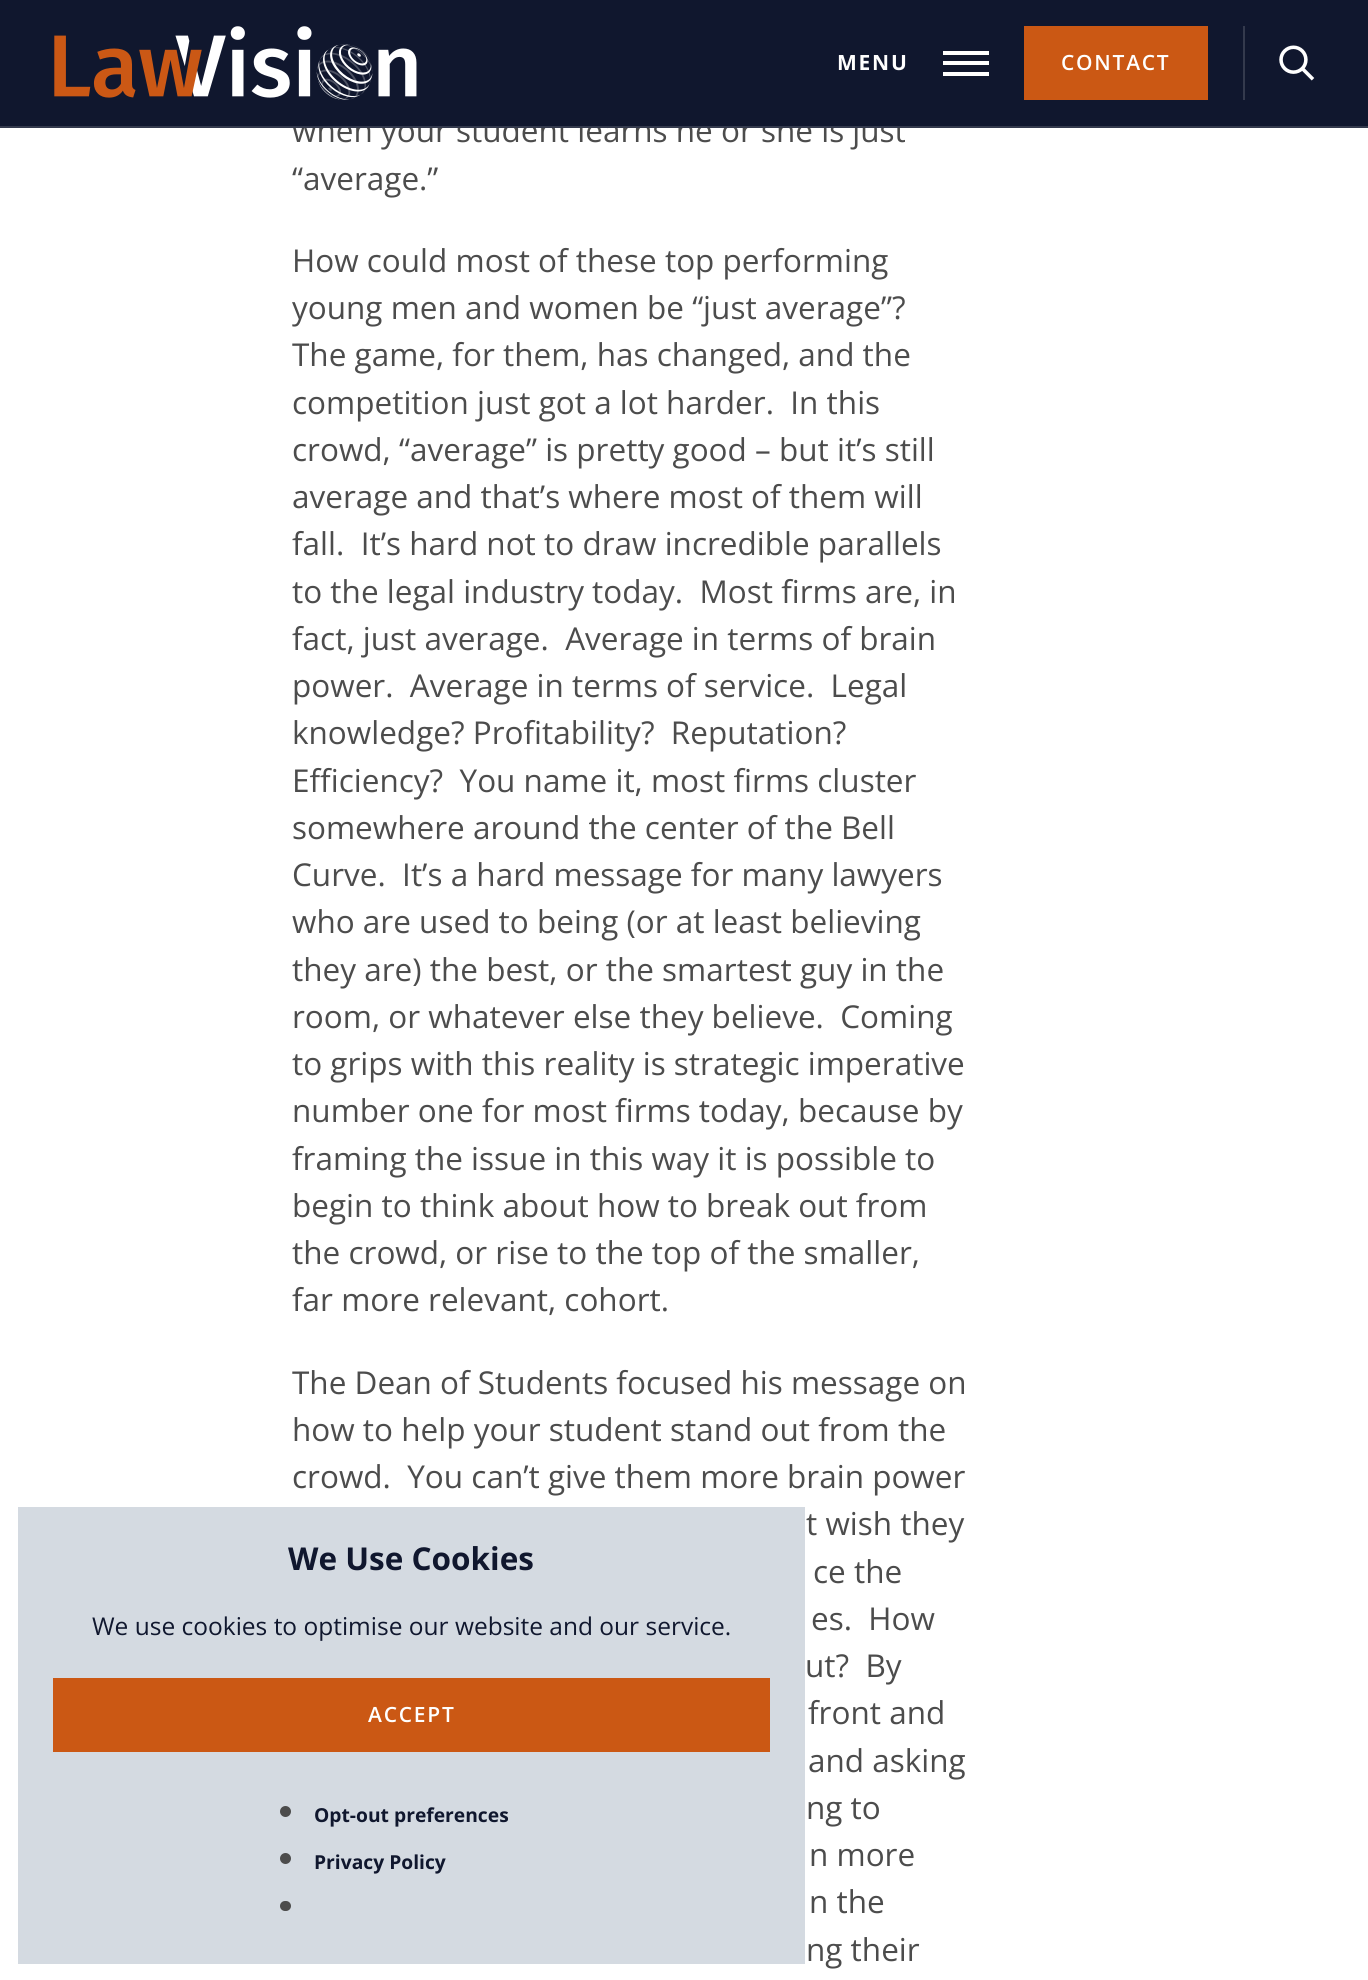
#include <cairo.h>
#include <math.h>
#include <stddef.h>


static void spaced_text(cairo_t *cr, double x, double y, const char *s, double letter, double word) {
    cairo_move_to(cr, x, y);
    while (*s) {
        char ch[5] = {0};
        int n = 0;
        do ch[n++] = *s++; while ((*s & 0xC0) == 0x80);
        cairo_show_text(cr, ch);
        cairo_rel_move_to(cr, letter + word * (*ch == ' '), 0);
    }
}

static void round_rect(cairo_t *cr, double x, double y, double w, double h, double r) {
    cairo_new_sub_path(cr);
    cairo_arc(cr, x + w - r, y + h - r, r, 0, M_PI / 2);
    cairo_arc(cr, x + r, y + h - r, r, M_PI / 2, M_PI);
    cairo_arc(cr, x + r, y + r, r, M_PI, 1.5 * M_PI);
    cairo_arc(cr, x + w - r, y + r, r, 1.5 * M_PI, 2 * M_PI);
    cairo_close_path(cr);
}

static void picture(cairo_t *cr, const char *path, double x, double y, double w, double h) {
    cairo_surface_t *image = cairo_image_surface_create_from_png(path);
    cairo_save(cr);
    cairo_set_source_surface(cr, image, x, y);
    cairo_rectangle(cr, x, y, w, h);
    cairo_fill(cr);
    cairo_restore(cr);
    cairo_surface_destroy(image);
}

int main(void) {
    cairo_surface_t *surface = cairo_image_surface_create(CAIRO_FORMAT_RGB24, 1368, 1980);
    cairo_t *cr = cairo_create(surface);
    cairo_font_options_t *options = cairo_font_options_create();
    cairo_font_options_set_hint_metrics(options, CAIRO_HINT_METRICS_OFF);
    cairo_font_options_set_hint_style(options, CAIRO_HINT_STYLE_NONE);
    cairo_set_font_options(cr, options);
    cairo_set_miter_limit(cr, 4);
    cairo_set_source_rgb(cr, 1, 1, 1);
    cairo_paint(cr);
    cairo_select_font_face(cr, "Open Sans", CAIRO_FONT_SLANT_NORMAL, CAIRO_FONT_WEIGHT_NORMAL);
    cairo_set_font_size(cr, 31.5);
    cairo_set_source_rgb(cr, 0.298, 0.298, 0.298);
    cairo_move_to(cr, 292, 142);
    cairo_show_text(cr, "when your student learns he or she is just");
    cairo_set_source_rgb(cr, 0.063, 0.09, 0.18);
    cairo_rectangle(cr, 0, 0, 1368, 126);
    cairo_fill(cr);
    cairo_set_source_rgb(cr, 0.204, 0.227, 0.302);
    cairo_rectangle(cr, 0, 126, 1368, 2);
    cairo_fill(cr);
    picture(cr, "img1.png", 54, 26, 363, 74);
    cairo_select_font_face(cr, "Open Sans", CAIRO_FONT_SLANT_NORMAL, CAIRO_FONT_WEIGHT_BOLD);
    cairo_set_font_size(cr, 21);
    cairo_set_source_rgb(cr, 1, 1, 1);
    spaced_text(cr, 837, 70, "MENU", 1.75, 0);
    cairo_rectangle(cr, 943, 51, 46, 4);
    cairo_fill(cr);
    cairo_rectangle(cr, 943, 61, 46, 4);
    cairo_fill(cr);
    cairo_rectangle(cr, 943, 72, 46, 4);
    cairo_fill(cr);
    cairo_set_source_rgb(cr, 0.796, 0.345, 0.082);
    cairo_rectangle(cr, 1024, 26, 184, 74);
    cairo_fill(cr);
    cairo_select_font_face(cr, "Open Sans SemiBold", CAIRO_FONT_SLANT_NORMAL, CAIRO_FONT_WEIGHT_NORMAL);
    cairo_set_source_rgb(cr, 1, 1, 1);
    spaced_text(cr, 1061, 70, "CONTACT", 1.75, 0);
    cairo_set_source_rgb(cr, 0.204, 0.227, 0.302);
    cairo_rectangle(cr, 1243, 26, 2, 74);
    cairo_fill(cr);
    picture(cr, "img2.png", 1279, 45, 36, 36);
    cairo_select_font_face(cr, "Open Sans", CAIRO_FONT_SLANT_NORMAL, CAIRO_FONT_WEIGHT_NORMAL);
    cairo_set_font_size(cr, 31.5);
    cairo_set_source_rgb(cr, 0.298, 0.298, 0.298);
    cairo_move_to(cr, 292, 190);
    cairo_show_text(cr, "“average.”");
    cairo_move_to(cr, 292, 272);
    cairo_show_text(cr, "How could most of these top performing");
    cairo_move_to(cr, 292, 319);
    cairo_show_text(cr, "young men and women be “just average”?");
    cairo_move_to(cr, 292, 366);
    cairo_show_text(cr, "The game, for them, has changed, and the");
    cairo_move_to(cr, 292, 414);
    cairo_show_text(cr, "competition just got a lot harder.  In this");
    cairo_move_to(cr, 292, 461);
    cairo_show_text(cr, "crowd, “average” is pretty good – but it’s still");
    cairo_move_to(cr, 292, 508);
    cairo_show_text(cr, "average and that’s where most of them will");
    cairo_move_to(cr, 292, 555);
    cairo_show_text(cr, "fall.  It’s hard not to draw incredible parallels");
    cairo_move_to(cr, 292, 603);
    cairo_show_text(cr, "to the legal industry today.  Most firms are, in");
    cairo_move_to(cr, 292, 650);
    cairo_show_text(cr, "fact, just average.  Average in terms of brain");
    cairo_move_to(cr, 292, 697);
    cairo_show_text(cr, "power.  Average in terms of service.  Legal");
    cairo_move_to(cr, 292, 744);
    cairo_show_text(cr, "knowledge? Profitability?  Reputation?");
    cairo_move_to(cr, 292, 792);
    cairo_show_text(cr, "Efficiency?  You name it, most firms cluster");
    cairo_move_to(cr, 292, 839);
    cairo_show_text(cr, "somewhere around the center of the Bell");
    cairo_move_to(cr, 292, 886);
    cairo_show_text(cr, "Curve.  It’s a hard message for many lawyers");
    cairo_move_to(cr, 292, 933);
    cairo_show_text(cr, "who are used to being (or at least believing");
    cairo_move_to(cr, 292, 981);
    cairo_show_text(cr, "they are) the best, or the smartest guy in the");
    cairo_move_to(cr, 292, 1028);
    cairo_show_text(cr, "room, or whatever else they believe.  Coming");
    cairo_move_to(cr, 292, 1075);
    cairo_show_text(cr, "to grips with this reality is strategic imperative");
    cairo_move_to(cr, 292, 1122);
    cairo_show_text(cr, "number one for most firms today, because by");
    cairo_move_to(cr, 292, 1170);
    cairo_show_text(cr, "framing the issue in this way it is possible to");
    cairo_move_to(cr, 292, 1217);
    cairo_show_text(cr, "begin to think about how to break out from");
    cairo_move_to(cr, 292, 1264);
    cairo_show_text(cr, "the crowd, or rise to the top of the smaller,");
    cairo_move_to(cr, 292, 1311);
    cairo_show_text(cr, "far more relevant, cohort.");
    cairo_move_to(cr, 292, 1394);
    cairo_show_text(cr, "The Dean of Students focused his message on");
    cairo_move_to(cr, 292, 1441);
    cairo_show_text(cr, "how to help your student stand out from the");
    cairo_move_to(cr, 292, 1488);
    cairo_show_text(cr, "crowd.  You can’t give them more brain power");
    cairo_move_to(cr, 806, 1535);
    cairo_show_text(cr, "t wish they");
    cairo_move_to(cr, 813, 1583);
    cairo_show_text(cr, "ce the");
    cairo_move_to(cr, 811, 1630);
    cairo_show_text(cr, "es.  How");
    cairo_move_to(cr, 805, 1677);
    cairo_show_text(cr, "ut?  By");
    cairo_move_to(cr, 808, 1724);
    cairo_show_text(cr, "front and");
    cairo_move_to(cr, 808, 1772);
    cairo_show_text(cr, "and asking");
    cairo_move_to(cr, 806, 1819);
    cairo_show_text(cr, "ng to");
    cairo_move_to(cr, 809, 1866);
    cairo_show_text(cr, "n more");
    cairo_move_to(cr, 809, 1913);
    cairo_show_text(cr, "n the");
    cairo_move_to(cr, 806, 1961);
    cairo_show_text(cr, "ng their");
    cairo_set_source_rgb(cr, 0.831, 0.855, 0.882);
    cairo_rectangle(cr, 18, 1507, 787, 457);
    cairo_fill(cr);
    cairo_select_font_face(cr, "Open Sans", CAIRO_FONT_SLANT_NORMAL, CAIRO_FONT_WEIGHT_BOLD);
    cairo_set_source_rgb(cr, 0.063, 0.09, 0.18);
    cairo_move_to(cr, 288, 1570);
    cairo_show_text(cr, "We Use Cookies");
    cairo_select_font_face(cr, "Open Sans", CAIRO_FONT_SLANT_NORMAL, CAIRO_FONT_WEIGHT_NORMAL);
    cairo_set_font_size(cr, 24.5);
    cairo_move_to(cr, 92, 1635);
    cairo_show_text(cr, "We use cookies to optimise our website and our service.");
    cairo_set_source_rgb(cr, 0.796, 0.345, 0.082);
    cairo_rectangle(cr, 53, 1678, 717, 74);
    cairo_fill(cr);
    cairo_select_font_face(cr, "Open Sans SemiBold", CAIRO_FONT_SLANT_NORMAL, CAIRO_FONT_WEIGHT_NORMAL);
    cairo_set_font_size(cr, 21);
    cairo_set_source_rgb(cr, 1, 1, 1);
    spaced_text(cr, 368, 1722, "ACCEPT", 1.75, 0);
    cairo_set_source_rgb(cr, 0.298, 0.298, 0.298);
    cairo_new_path(cr);
    cairo_arc(cr, 285.5, 1811.5, 5.5, 0, 2 * M_PI);
    cairo_fill(cr);
    cairo_select_font_face(cr, "Open Sans", CAIRO_FONT_SLANT_NORMAL, CAIRO_FONT_WEIGHT_BOLD);
    cairo_set_font_size(cr, 19.25);
    cairo_set_source_rgb(cr, 0.063, 0.09, 0.18);
    cairo_move_to(cr, 314, 1822);
    cairo_show_text(cr, "Opt-out preferences");
    cairo_set_source_rgb(cr, 0.298, 0.298, 0.298);
    cairo_new_path(cr);
    cairo_arc(cr, 285.5, 1858.5, 5.5, 0, 2 * M_PI);
    cairo_fill(cr);
    cairo_set_source_rgb(cr, 0.063, 0.09, 0.18);
    cairo_move_to(cr, 314, 1869);
    cairo_show_text(cr, "Privacy Policy");
    cairo_set_source_rgb(cr, 0.298, 0.298, 0.298);
    round_rect(cr, 280, 1901, 11, 10, 5);
    cairo_fill(cr);
    cairo_surface_write_to_png(surface, "page.png");
    cairo_font_options_destroy(options);
    cairo_destroy(cr);
    cairo_surface_destroy(surface);
    return 0;
}
